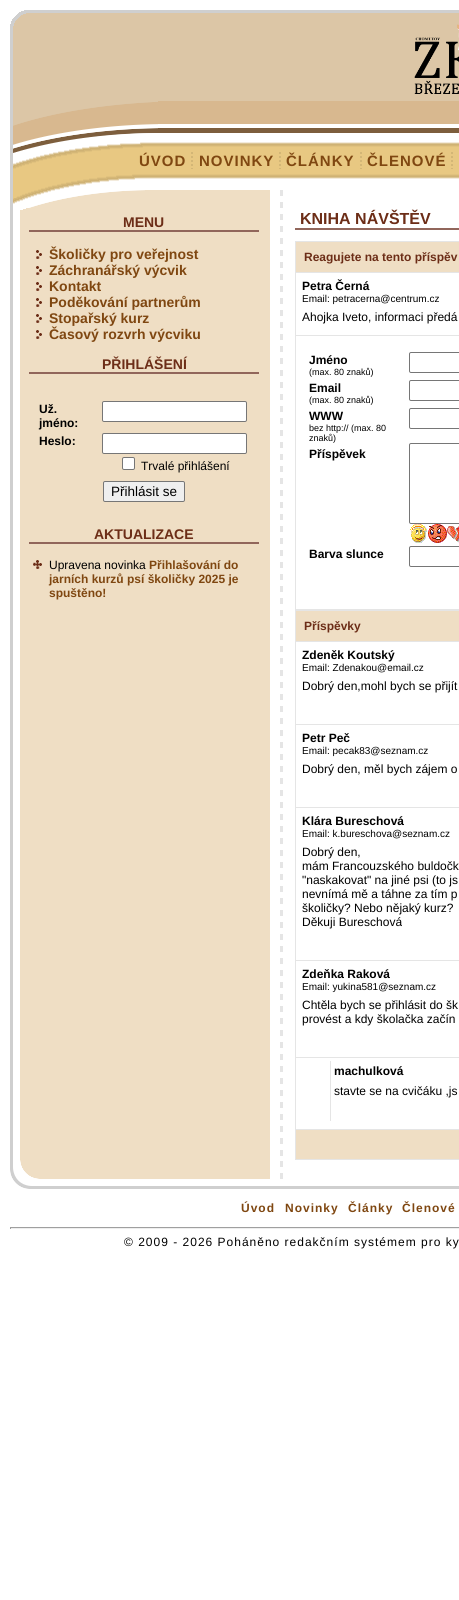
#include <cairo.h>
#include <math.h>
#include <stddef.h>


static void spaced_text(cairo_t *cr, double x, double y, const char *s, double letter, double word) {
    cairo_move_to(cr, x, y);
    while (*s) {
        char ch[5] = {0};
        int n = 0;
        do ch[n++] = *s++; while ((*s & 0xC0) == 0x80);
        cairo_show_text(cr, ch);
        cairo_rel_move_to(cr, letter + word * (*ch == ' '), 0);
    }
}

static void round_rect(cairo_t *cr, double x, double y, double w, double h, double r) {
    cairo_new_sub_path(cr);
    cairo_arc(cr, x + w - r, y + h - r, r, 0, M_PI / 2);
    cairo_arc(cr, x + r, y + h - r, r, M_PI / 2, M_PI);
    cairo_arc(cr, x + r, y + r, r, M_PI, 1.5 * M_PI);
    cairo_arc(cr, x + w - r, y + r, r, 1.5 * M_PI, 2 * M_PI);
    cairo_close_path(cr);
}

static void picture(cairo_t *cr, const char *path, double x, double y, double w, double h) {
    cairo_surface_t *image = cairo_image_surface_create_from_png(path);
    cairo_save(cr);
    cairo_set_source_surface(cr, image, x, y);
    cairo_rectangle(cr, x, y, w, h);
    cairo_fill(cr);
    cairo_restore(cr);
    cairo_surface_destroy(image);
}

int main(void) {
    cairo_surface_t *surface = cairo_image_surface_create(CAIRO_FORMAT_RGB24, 459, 1600);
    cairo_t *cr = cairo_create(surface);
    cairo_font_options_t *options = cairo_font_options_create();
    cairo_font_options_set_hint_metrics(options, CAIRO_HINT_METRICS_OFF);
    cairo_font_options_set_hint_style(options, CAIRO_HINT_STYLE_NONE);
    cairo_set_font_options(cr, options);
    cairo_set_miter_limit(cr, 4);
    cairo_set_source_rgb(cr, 1, 1, 1);
    cairo_paint(cr);
    picture(cr, "img1.png", 10, 10, 449, 200);
    picture(cr, "img2.png", 414, 24, 45, 70);
    cairo_select_font_face(cr, "Liberation Sans", CAIRO_FONT_SLANT_NORMAL, CAIRO_FONT_WEIGHT_BOLD);
    cairo_set_font_size(cr, 15);
    cairo_set_source_rgb(cr, 0.498, 0.278, 0.067);
    spaced_text(cr, 139, 166, "ÚVOD", 1, 0);
    cairo_new_path(cr);
    cairo_move_to(cr, 192, 152);
    cairo_line_to(cr, 192, 169);
    cairo_set_source_rgb(cr, 0.827, 0.714, 0.463);
    cairo_set_dash(cr, (double[]){2, 2}, 2, 0);
    cairo_stroke(cr);
    cairo_set_source_rgb(cr, 0.498, 0.278, 0.067);
    spaced_text(cr, 199, 166, "NOVINKY", 1, 0);
    cairo_new_path(cr);
    cairo_move_to(cr, 280, 152);
    cairo_line_to(cr, 280, 169);
    cairo_set_source_rgb(cr, 0.827, 0.714, 0.463);
    cairo_stroke(cr);
    cairo_set_source_rgb(cr, 0.498, 0.278, 0.067);
    spaced_text(cr, 286, 166, "ČLÁNKY", 1, 0);
    cairo_new_path(cr);
    cairo_move_to(cr, 361, 152);
    cairo_line_to(cr, 361, 169);
    cairo_set_source_rgb(cr, 0.827, 0.714, 0.463);
    cairo_stroke(cr);
    cairo_set_source_rgb(cr, 0.498, 0.278, 0.067);
    spaced_text(cr, 367, 166, "ČLENOVÉ", 1, 0);
    cairo_new_path(cr);
    cairo_move_to(cr, 452, 152);
    cairo_line_to(cr, 452, 169);
    cairo_set_source_rgb(cr, 0.827, 0.714, 0.463);
    cairo_stroke(cr);
    picture(cr, "img3.png", 10, 210, 273, 950);
    cairo_set_source_rgb(cr, 0.569, 0.4, 0.357);
    cairo_rectangle(cr, 29, 230, 230, 2);
    cairo_fill(cr);
    cairo_set_font_size(cr, 14);
    cairo_set_source_rgb(cr, 0.424, 0.176, 0.09);
    cairo_move_to(cr, 123, 227);
    cairo_show_text(cr, "MENU");
    picture(cr, "img4.png", 36, 250, 6, 9);
    cairo_set_source_rgb(cr, 0.498, 0.278, 0.067);
    cairo_move_to(cr, 49, 259);
    cairo_show_text(cr, "Školičky pro veřejnost");
    picture(cr, "img4.png", 36, 266, 6, 9);
    cairo_move_to(cr, 49, 275);
    cairo_show_text(cr, "Záchranářský výcvik");
    picture(cr, "img4.png", 36, 282, 6, 9);
    cairo_move_to(cr, 49, 291);
    cairo_show_text(cr, "Kontakt");
    picture(cr, "img4.png", 36, 298, 6, 9);
    cairo_move_to(cr, 49, 307);
    cairo_show_text(cr, "Poděkování partnerům");
    picture(cr, "img4.png", 36, 314, 6, 9);
    cairo_move_to(cr, 49, 323);
    cairo_show_text(cr, "Stopařský kurz");
    picture(cr, "img4.png", 36, 330, 6, 9);
    cairo_move_to(cr, 49, 339);
    cairo_show_text(cr, "Časový rozvrh výcviku");
    cairo_set_source_rgb(cr, 0.569, 0.4, 0.357);
    cairo_rectangle(cr, 29, 372, 230, 2);
    cairo_fill(cr);
    cairo_set_source_rgb(cr, 0.424, 0.176, 0.09);
    cairo_move_to(cr, 102, 369);
    cairo_show_text(cr, "PŘIHLÁŠENÍ");
    cairo_set_font_size(cr, 12);
    cairo_set_source_rgb(cr, 0, 0, 0);
    cairo_move_to(cr, 39, 413);
    cairo_show_text(cr, "Už.");
    cairo_move_to(cr, 39, 427);
    cairo_show_text(cr, "jméno:");
    cairo_set_source_rgb(cr, 1, 1, 1);
    round_rect(cr, 102.5, 401.5, 144, 20, 1.5);
    cairo_fill_preserve(cr);
    cairo_set_source_rgb(cr, 0.463, 0.463, 0.463);
    cairo_set_line_width(cr, 1);
    cairo_set_dash(cr, NULL, 0, 0);
    cairo_stroke(cr);
    cairo_set_source_rgb(cr, 0, 0, 0);
    cairo_move_to(cr, 39, 445);
    cairo_show_text(cr, "Heslo:");
    cairo_set_source_rgb(cr, 1, 1, 1);
    round_rect(cr, 102.5, 433.5, 144, 20, 1.5);
    cairo_fill_preserve(cr);
    cairo_set_source_rgb(cr, 0.463, 0.463, 0.463);
    cairo_stroke(cr);
    cairo_set_source_rgb(cr, 1, 1, 1);
    round_rect(cr, 122.5, 457.5, 12, 12, 1.5);
    cairo_fill_preserve(cr);
    cairo_set_source_rgb(cr, 0.463, 0.463, 0.463);
    cairo_stroke(cr);
    cairo_select_font_face(cr, "Liberation Sans", CAIRO_FONT_SLANT_NORMAL, CAIRO_FONT_WEIGHT_NORMAL);
    cairo_set_source_rgb(cr, 0, 0, 0);
    cairo_move_to(cr, 141, 470);
    cairo_show_text(cr, "Trvalé přihlášení");
    cairo_set_source_rgb(cr, 0.937, 0.937, 0.937);
    round_rect(cr, 103.5, 481.5, 81, 20, 1.5);
    cairo_fill_preserve(cr);
    cairo_set_source_rgb(cr, 0.463, 0.463, 0.463);
    cairo_stroke(cr);
    cairo_set_font_size(cr, 13.5);
    cairo_set_source_rgb(cr, 0, 0, 0);
    cairo_move_to(cr, 111, 496);
    cairo_show_text(cr, "Přihlásit se");
    cairo_set_source_rgb(cr, 0.569, 0.4, 0.357);
    cairo_rectangle(cr, 29, 542, 230, 2);
    cairo_fill(cr);
    cairo_select_font_face(cr, "Liberation Sans", CAIRO_FONT_SLANT_NORMAL, CAIRO_FONT_WEIGHT_BOLD);
    cairo_set_font_size(cr, 14);
    cairo_set_source_rgb(cr, 0.424, 0.176, 0.09);
    cairo_move_to(cr, 94, 539);
    cairo_show_text(cr, "AKTUALIZACE");
    picture(cr, "img5.png", 33, 560, 9, 9);
    cairo_select_font_face(cr, "Liberation Sans", CAIRO_FONT_SLANT_NORMAL, CAIRO_FONT_WEIGHT_NORMAL);
    cairo_set_font_size(cr, 12);
    cairo_set_source_rgb(cr, 0, 0, 0);
    cairo_move_to(cr, 49, 569);
    cairo_show_text(cr, "Upravena novinka");
    cairo_select_font_face(cr, "Liberation Sans", CAIRO_FONT_SLANT_NORMAL, CAIRO_FONT_WEIGHT_BOLD);
    cairo_set_source_rgb(cr, 0.498, 0.278, 0.067);
    cairo_move_to(cr, 149, 569);
    cairo_show_text(cr, "Přihlašování do");
    cairo_move_to(cr, 49, 583);
    cairo_show_text(cr, "jarních kurzů psí školičky 2025 je");
    cairo_move_to(cr, 49, 597);
    cairo_show_text(cr, "spuštěno!");
    cairo_set_source_rgb(cr, 0.569, 0.4, 0.357);
    cairo_rectangle(cr, 295, 228, 164, 2);
    cairo_fill(cr);
    cairo_set_font_size(cr, 16);
    cairo_set_source_rgb(cr, 0.424, 0.176, 0.09);
    cairo_move_to(cr, 300, 224);
    cairo_show_text(cr, "KNIHA NÁVŠTĚV");
    cairo_rectangle(cr, 295.5, 241.5, 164, 368);
    cairo_set_source_rgb(cr, 0.898, 0.898, 0.898);
    cairo_stroke(cr);
    cairo_set_source_rgb(cr, 0.937, 0.871, 0.769);
    cairo_rectangle(cr, 296, 242, 163, 30);
    cairo_fill(cr);
    cairo_set_font_size(cr, 12);
    cairo_set_source_rgb(cr, 0.424, 0.176, 0.09);
    cairo_move_to(cr, 304, 261);
    cairo_show_text(cr, "Reagujete na tento příspěv");
    cairo_set_source_rgb(cr, 0.898, 0.898, 0.898);
    cairo_rectangle(cr, 296, 272, 163, 1);
    cairo_fill(cr);
    cairo_set_source_rgb(cr, 0, 0, 0);
    cairo_move_to(cr, 302, 290);
    cairo_show_text(cr, "Petra Černá");
    cairo_select_font_face(cr, "Liberation Sans", CAIRO_FONT_SLANT_NORMAL, CAIRO_FONT_WEIGHT_NORMAL);
    cairo_set_font_size(cr, 10);
    cairo_move_to(cr, 302, 302);
    cairo_show_text(cr, "Email: petracerna@centrum.cz");
    cairo_set_font_size(cr, 12);
    cairo_move_to(cr, 302, 321);
    cairo_show_text(cr, "Ahojka Iveto, informaci předá");
    cairo_set_source_rgb(cr, 0.898, 0.898, 0.898);
    cairo_rectangle(cr, 296, 335, 163, 1);
    cairo_fill(cr);
    cairo_select_font_face(cr, "Liberation Sans", CAIRO_FONT_SLANT_NORMAL, CAIRO_FONT_WEIGHT_BOLD);
    cairo_set_source_rgb(cr, 0, 0, 0);
    cairo_move_to(cr, 309, 364);
    cairo_show_text(cr, "Jméno");
    cairo_select_font_face(cr, "Liberation Sans", CAIRO_FONT_SLANT_NORMAL, CAIRO_FONT_WEIGHT_NORMAL);
    cairo_set_font_size(cr, 9);
    cairo_move_to(cr, 309, 375);
    cairo_show_text(cr, "(max. 80 znaků)");
    round_rect(cr, 409.5, 352.5, 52, 20, 1.5);
    cairo_set_source_rgb(cr, 0.463, 0.463, 0.463);
    cairo_stroke(cr);
    cairo_select_font_face(cr, "Liberation Sans", CAIRO_FONT_SLANT_NORMAL, CAIRO_FONT_WEIGHT_BOLD);
    cairo_set_font_size(cr, 12);
    cairo_set_source_rgb(cr, 0, 0, 0);
    cairo_move_to(cr, 309, 392);
    cairo_show_text(cr, "Email");
    cairo_select_font_face(cr, "Liberation Sans", CAIRO_FONT_SLANT_NORMAL, CAIRO_FONT_WEIGHT_NORMAL);
    cairo_set_font_size(cr, 9);
    cairo_move_to(cr, 309, 403);
    cairo_show_text(cr, "(max. 80 znaků)");
    round_rect(cr, 409.5, 380.5, 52, 20, 1.5);
    cairo_set_source_rgb(cr, 0.463, 0.463, 0.463);
    cairo_stroke(cr);
    cairo_select_font_face(cr, "Liberation Sans", CAIRO_FONT_SLANT_NORMAL, CAIRO_FONT_WEIGHT_BOLD);
    cairo_set_font_size(cr, 12);
    cairo_set_source_rgb(cr, 0, 0, 0);
    cairo_move_to(cr, 309, 420);
    cairo_show_text(cr, "WWW");
    cairo_select_font_face(cr, "Liberation Sans", CAIRO_FONT_SLANT_NORMAL, CAIRO_FONT_WEIGHT_NORMAL);
    cairo_set_font_size(cr, 9);
    cairo_move_to(cr, 309, 431);
    cairo_show_text(cr, "bez http:// (max. 80");
    cairo_move_to(cr, 309, 441);
    cairo_show_text(cr, "znaků)");
    round_rect(cr, 409.5, 408.5, 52, 20, 1.5);
    cairo_set_source_rgb(cr, 0.463, 0.463, 0.463);
    cairo_stroke(cr);
    cairo_select_font_face(cr, "Liberation Sans", CAIRO_FONT_SLANT_NORMAL, CAIRO_FONT_WEIGHT_BOLD);
    cairo_set_font_size(cr, 12);
    cairo_set_source_rgb(cr, 0, 0, 0);
    cairo_move_to(cr, 309, 458);
    cairo_show_text(cr, "Příspěvek");
    round_rect(cr, 409.5, 443.5, 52, 80, 1.5);
    cairo_set_source_rgb(cr, 0.463, 0.463, 0.463);
    cairo_stroke(cr);
    picture(cr, "img6.png", 410, 524, 17, 19);
    picture(cr, "img7.png", 428, 524, 19, 19);
    picture(cr, "img8.png", 447, 526, 12, 17);
    cairo_set_source_rgb(cr, 0, 0, 0);
    cairo_move_to(cr, 309, 558);
    cairo_show_text(cr, "Barva slunce");
    round_rect(cr, 409.5, 546.5, 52, 20, 1.5);
    cairo_set_source_rgb(cr, 0.463, 0.463, 0.463);
    cairo_stroke(cr);
    cairo_rectangle(cr, 295.5, 610.5, 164, 519);
    cairo_set_source_rgb(cr, 0.898, 0.898, 0.898);
    cairo_stroke(cr);
    cairo_set_source_rgb(cr, 0.937, 0.871, 0.769);
    cairo_rectangle(cr, 296, 611, 163, 30);
    cairo_fill(cr);
    cairo_set_source_rgb(cr, 0.424, 0.176, 0.09);
    cairo_move_to(cr, 304, 630);
    cairo_show_text(cr, "Příspěvky");
    cairo_set_source_rgb(cr, 0.898, 0.898, 0.898);
    cairo_rectangle(cr, 296, 641, 163, 1);
    cairo_fill(cr);
    cairo_set_source_rgb(cr, 0, 0, 0);
    cairo_move_to(cr, 302, 659);
    cairo_show_text(cr, "Zdeněk Koutský");
    cairo_select_font_face(cr, "Liberation Sans", CAIRO_FONT_SLANT_NORMAL, CAIRO_FONT_WEIGHT_NORMAL);
    cairo_set_font_size(cr, 10);
    cairo_move_to(cr, 302, 671);
    cairo_show_text(cr, "Email: Zdenakou@email.cz");
    cairo_set_font_size(cr, 12);
    cairo_move_to(cr, 302, 690);
    cairo_show_text(cr, "Dobrý den,mohl bych se přijít");
    cairo_set_source_rgb(cr, 0.898, 0.898, 0.898);
    cairo_rectangle(cr, 296, 724, 163, 1);
    cairo_fill(cr);
    cairo_select_font_face(cr, "Liberation Sans", CAIRO_FONT_SLANT_NORMAL, CAIRO_FONT_WEIGHT_BOLD);
    cairo_set_source_rgb(cr, 0, 0, 0);
    cairo_move_to(cr, 302, 742);
    cairo_show_text(cr, "Petr Peč");
    cairo_select_font_face(cr, "Liberation Sans", CAIRO_FONT_SLANT_NORMAL, CAIRO_FONT_WEIGHT_NORMAL);
    cairo_set_font_size(cr, 10);
    cairo_move_to(cr, 302, 754);
    cairo_show_text(cr, "Email: pecak83@seznam.cz");
    cairo_set_font_size(cr, 12);
    cairo_move_to(cr, 302, 773);
    cairo_show_text(cr, "Dobrý den, měl bych zájem o");
    cairo_set_source_rgb(cr, 0.898, 0.898, 0.898);
    cairo_rectangle(cr, 296, 807, 163, 1);
    cairo_fill(cr);
    cairo_select_font_face(cr, "Liberation Sans", CAIRO_FONT_SLANT_NORMAL, CAIRO_FONT_WEIGHT_BOLD);
    cairo_set_source_rgb(cr, 0, 0, 0);
    cairo_move_to(cr, 302, 825);
    cairo_show_text(cr, "Klára Bureschová");
    cairo_select_font_face(cr, "Liberation Sans", CAIRO_FONT_SLANT_NORMAL, CAIRO_FONT_WEIGHT_NORMAL);
    cairo_set_font_size(cr, 10);
    cairo_move_to(cr, 302, 837);
    cairo_show_text(cr, "Email: k.bureschova@seznam.cz");
    cairo_set_font_size(cr, 12);
    cairo_move_to(cr, 302, 856);
    cairo_show_text(cr, "Dobrý den,");
    cairo_move_to(cr, 302, 870);
    cairo_show_text(cr, "mám Francouzského buldočk");
    cairo_move_to(cr, 302, 884);
    cairo_show_text(cr, "\"naskakovat\" na jiné psi (to js");
    cairo_move_to(cr, 302, 898);
    cairo_show_text(cr, "nevnímá mě a táhne za tím p");
    cairo_move_to(cr, 302, 912);
    cairo_show_text(cr, "školičky? Nebo nějaký kurz?");
    cairo_move_to(cr, 302, 926);
    cairo_show_text(cr, "Děkuji Bureschová");
    cairo_set_source_rgb(cr, 0.898, 0.898, 0.898);
    cairo_rectangle(cr, 296, 960, 163, 1);
    cairo_fill(cr);
    cairo_select_font_face(cr, "Liberation Sans", CAIRO_FONT_SLANT_NORMAL, CAIRO_FONT_WEIGHT_BOLD);
    cairo_set_source_rgb(cr, 0, 0, 0);
    cairo_move_to(cr, 302, 978);
    cairo_show_text(cr, "Zdeňka Raková");
    cairo_select_font_face(cr, "Liberation Sans", CAIRO_FONT_SLANT_NORMAL, CAIRO_FONT_WEIGHT_NORMAL);
    cairo_set_font_size(cr, 10);
    cairo_move_to(cr, 302, 990);
    cairo_show_text(cr, "Email: yukina581@seznam.cz");
    cairo_set_font_size(cr, 12);
    cairo_move_to(cr, 302, 1009);
    cairo_show_text(cr, "Chtěla bych se přihlásit do šk");
    cairo_move_to(cr, 302, 1023);
    cairo_show_text(cr, "provést a kdy školačka začín");
    cairo_set_source_rgb(cr, 0.898, 0.898, 0.898);
    cairo_rectangle(cr, 296, 1057, 163, 1);
    cairo_fill(cr);
    cairo_rectangle(cr, 330, 1061, 1, 60);
    cairo_fill(cr);
    cairo_select_font_face(cr, "Liberation Sans", CAIRO_FONT_SLANT_NORMAL, CAIRO_FONT_WEIGHT_BOLD);
    cairo_set_source_rgb(cr, 0, 0, 0);
    cairo_move_to(cr, 334, 1075);
    cairo_show_text(cr, "machulková");
    cairo_select_font_face(cr, "Liberation Sans", CAIRO_FONT_SLANT_NORMAL, CAIRO_FONT_WEIGHT_NORMAL);
    cairo_move_to(cr, 334, 1095);
    cairo_show_text(cr, "stavte se na cvičáku ,js");
    cairo_set_source_rgb(cr, 0.937, 0.871, 0.769);
    cairo_rectangle(cr, 296, 1130, 163, 29);
    cairo_fill(cr);
    cairo_set_source_rgb(cr, 0.898, 0.898, 0.898);
    cairo_rectangle(cr, 295, 1159, 164, 1);
    cairo_fill(cr);
    cairo_rectangle(cr, 295, 1130, 1, 30);
    cairo_fill(cr);
    picture(cr, "img9.png", 10, 1160, 449, 29);
    cairo_select_font_face(cr, "Liberation Sans", CAIRO_FONT_SLANT_NORMAL, CAIRO_FONT_WEIGHT_BOLD);
    cairo_set_source_rgb(cr, 0.498, 0.278, 0.067);
    spaced_text(cr, 241, 1212, "Úvod", 1, 0);
    spaced_text(cr, 285, 1212, "Novinky", 1, 0);
    spaced_text(cr, 348, 1212, "Články", 1, 0);
    spaced_text(cr, 402, 1212, "Členové", 1, 0);
    cairo_set_source_rgb(cr, 0.624, 0.624, 0.624);
    cairo_rectangle(cr, 10, 1227, 449, 1);
    cairo_fill(cr);
    cairo_set_source_rgb(cr, 0.933, 0.933, 0.933);
    cairo_rectangle(cr, 10, 1228, 449, 1);
    cairo_fill(cr);
    cairo_set_source_rgb(cr, 0.624, 0.624, 0.624);
    cairo_rectangle(cr, 10, 1227, 1, 2);
    cairo_fill(cr);
    cairo_select_font_face(cr, "Liberation Sans", CAIRO_FONT_SLANT_NORMAL, CAIRO_FONT_WEIGHT_NORMAL);
    cairo_set_source_rgb(cr, 0, 0, 0);
    spaced_text(cr, 124, 1246, "© 2009 - 2026 Poháněno redakčním systémem pro ky", 1, 0);
    cairo_surface_write_to_png(surface, "page.png");
    cairo_font_options_destroy(options);
    cairo_destroy(cr);
    cairo_surface_destroy(surface);
    return 0;
}
